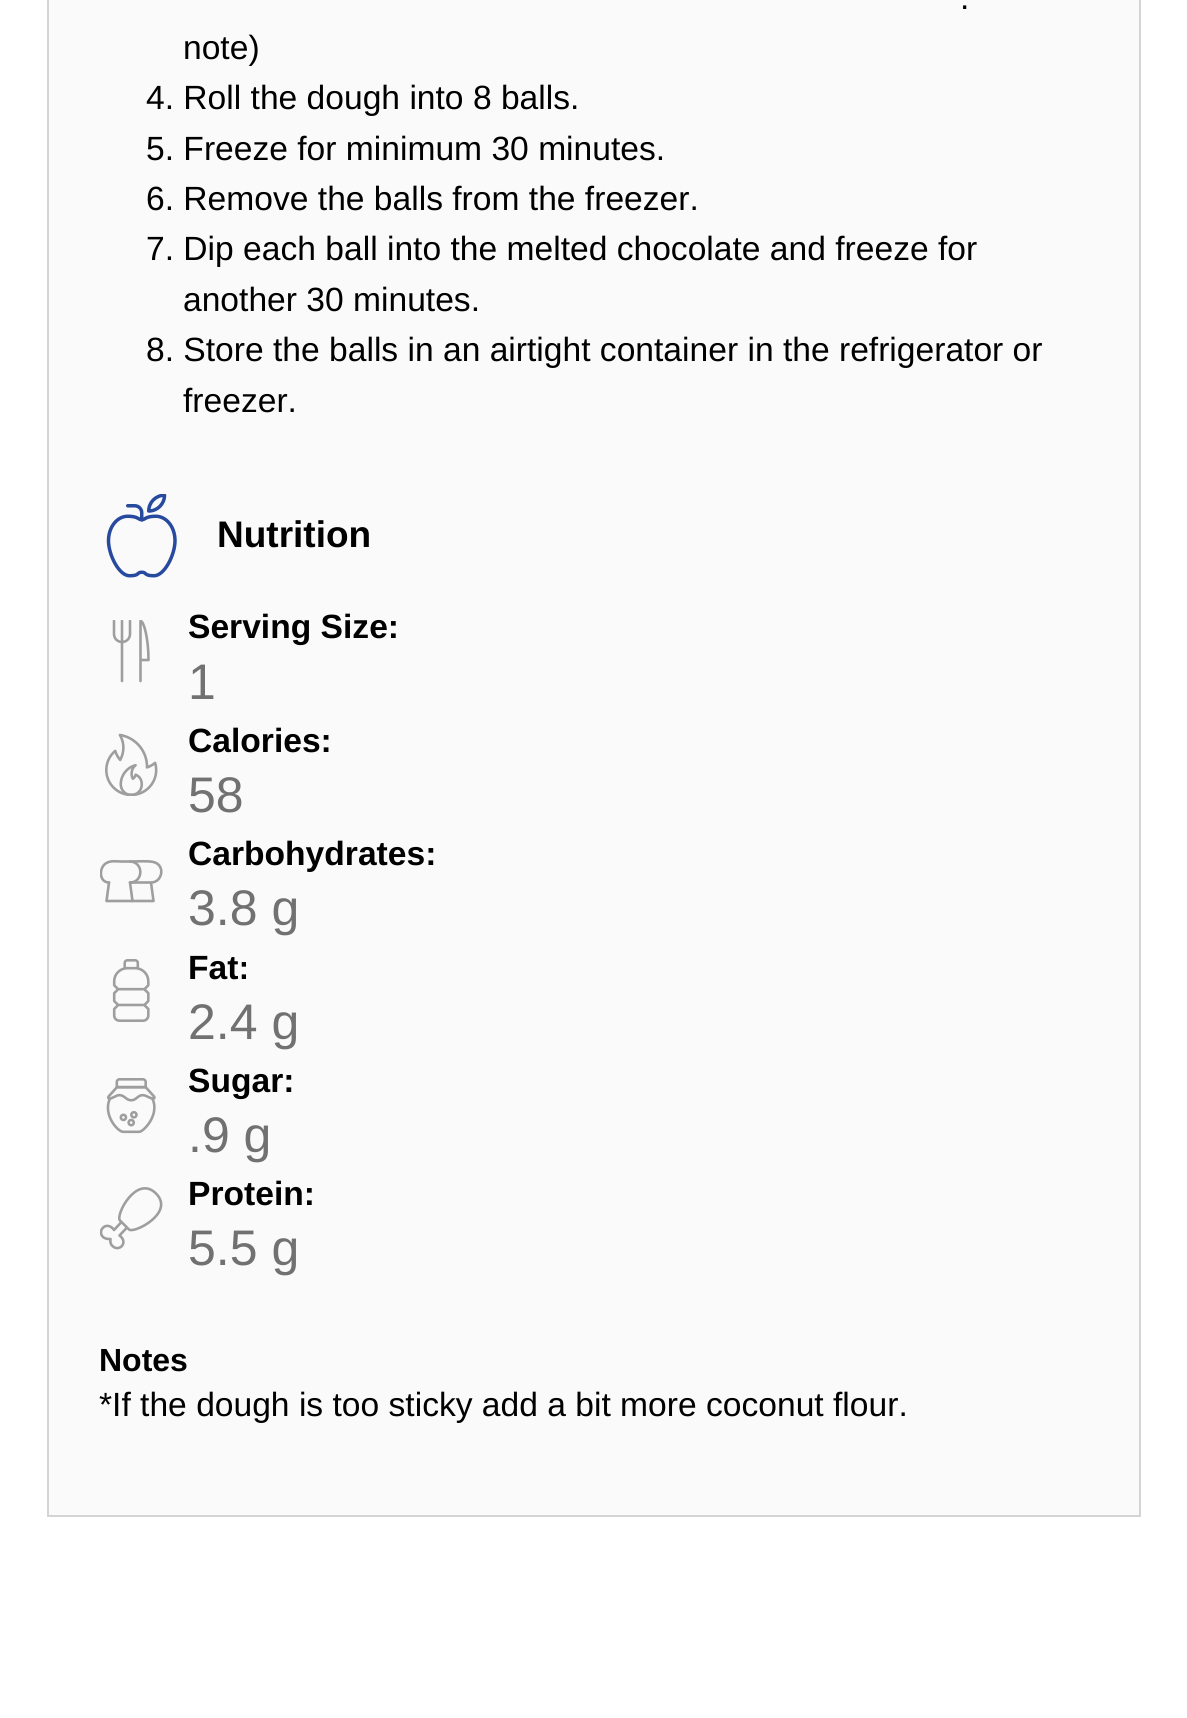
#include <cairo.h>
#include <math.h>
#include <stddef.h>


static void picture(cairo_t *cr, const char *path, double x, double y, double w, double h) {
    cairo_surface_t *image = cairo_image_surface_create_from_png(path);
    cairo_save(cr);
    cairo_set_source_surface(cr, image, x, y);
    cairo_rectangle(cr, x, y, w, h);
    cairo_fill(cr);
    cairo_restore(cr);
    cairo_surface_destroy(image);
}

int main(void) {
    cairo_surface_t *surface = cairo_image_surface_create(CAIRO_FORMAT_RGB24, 1187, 1718);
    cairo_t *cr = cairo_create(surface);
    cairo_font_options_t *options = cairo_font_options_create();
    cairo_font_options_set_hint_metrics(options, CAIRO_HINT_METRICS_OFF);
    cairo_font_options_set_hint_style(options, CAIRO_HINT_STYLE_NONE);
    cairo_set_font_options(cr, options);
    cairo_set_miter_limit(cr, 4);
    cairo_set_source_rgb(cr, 1, 1, 1);
    cairo_paint(cr);
    cairo_set_source_rgb(cr, 0.98, 0.98, 0.98);
    cairo_rectangle(cr, 48, -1, 1092, 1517);
    cairo_fill_preserve(cr);
    cairo_set_source_rgb(cr, 0.831, 0.831, 0.831);
    cairo_stroke(cr);
    cairo_select_font_face(cr, "Liberation Sans", CAIRO_FONT_SLANT_NORMAL, CAIRO_FONT_WEIGHT_NORMAL);
    cairo_set_font_size(cr, 33.6);
    cairo_set_source_rgb(cr, 0, 0, 0);
    cairo_move_to(cr, 960, 9);
    cairo_show_text(cr, ".");
    cairo_move_to(cr, 183, 59);
    cairo_show_text(cr, "note)");
    cairo_move_to(cr, 146, 109);
    cairo_show_text(cr, "4. Roll the dough into 8 balls.");
    cairo_move_to(cr, 146, 160);
    cairo_show_text(cr, "5. Freeze for minimum 30 minutes.");
    cairo_move_to(cr, 146, 210);
    cairo_show_text(cr, "6. Remove the balls from the freezer.");
    cairo_move_to(cr, 146, 260);
    cairo_show_text(cr, "7. Dip each ball into the melted chocolate and freeze for");
    cairo_move_to(cr, 183, 311);
    cairo_show_text(cr, "another 30 minutes.");
    cairo_move_to(cr, 146, 361);
    cairo_show_text(cr, "8. Store the balls in an airtight container in the refrigerator or");
    cairo_move_to(cr, 183, 412);
    cairo_show_text(cr, "freezer.");
    picture(cr, "img1.png", 106, 494, 71, 84);
    cairo_select_font_face(cr, "Liberation Sans", CAIRO_FONT_SLANT_NORMAL, CAIRO_FONT_WEIGHT_BOLD);
    cairo_set_font_size(cr, 37);
    cairo_move_to(cr, 217, 547);
    cairo_show_text(cr, "Nutrition");
    cairo_save(cr);
    cairo_rectangle(cr, 100, 620, 63, 63);
    cairo_clip(cr);
    cairo_new_path(cr);
    cairo_move_to(cr, 140.5, 621);
    cairo_line_to(cr, 140.5, 681);
    cairo_move_to(cr, 140.5, 621);
    cairo_curve_to(cr, 144, 621, 148.5, 639, 148.5, 660);
    cairo_line_to(cr, 140.5, 660);
    cairo_move_to(cr, 114, 621);
    cairo_line_to(cr, 114, 634);
    cairo_curve_to(cr, 114, 638.5, 117.5, 642, 122, 642);
    cairo_curve_to(cr, 126.5, 642, 130, 638.5, 130, 634);
    cairo_line_to(cr, 130, 621);
    cairo_move_to(cr, 122, 621);
    cairo_line_to(cr, 122, 681);
    cairo_set_source_rgb(cr, 0.62, 0.62, 0.62);
    cairo_set_line_width(cr, 2.6);
    cairo_set_line_cap(cr, CAIRO_LINE_CAP_ROUND);
    cairo_set_line_join(cr, CAIRO_LINE_JOIN_ROUND);
    cairo_stroke(cr);
    cairo_restore(cr);
    cairo_set_font_size(cr, 33.6);
    cairo_move_to(cr, 188, 638);
    cairo_show_text(cr, "Serving Size:");
    cairo_select_font_face(cr, "Liberation Sans", CAIRO_FONT_SLANT_NORMAL, CAIRO_FONT_WEIGHT_NORMAL);
    cairo_set_font_size(cr, 50);
    cairo_set_source_rgb(cr, 0.443, 0.443, 0.443);
    cairo_move_to(cr, 188, 699);
    cairo_show_text(cr, "1");
    picture(cr, "img2.png", 105, 733, 53, 63);
    cairo_select_font_face(cr, "Liberation Sans", CAIRO_FONT_SLANT_NORMAL, CAIRO_FONT_WEIGHT_BOLD);
    cairo_set_font_size(cr, 33.6);
    cairo_set_source_rgb(cr, 0, 0, 0);
    cairo_move_to(cr, 188, 752);
    cairo_show_text(cr, "Calories:");
    cairo_select_font_face(cr, "Liberation Sans", CAIRO_FONT_SLANT_NORMAL, CAIRO_FONT_WEIGHT_NORMAL);
    cairo_set_font_size(cr, 50);
    cairo_set_source_rgb(cr, 0.443, 0.443, 0.443);
    cairo_move_to(cr, 188, 812);
    cairo_show_text(cr, "58");
    cairo_save(cr);
    cairo_rectangle(cr, 100, 847, 63, 63);
    cairo_clip(cr);
    cairo_new_path(cr);
    cairo_move_to(cr, 109, 882.5);
    cairo_curve_to(cr, 98.5, 882.5, 98.5, 866, 107.5, 862.5);
    cairo_curve_to(cr, 111.5, 860.5, 116.5, 861.5, 121, 861.5);
    cairo_line_to(cr, 130, 861.5);
    cairo_curve_to(cr, 144, 862, 143.5, 882.5, 130, 882.5);
    cairo_line_to(cr, 132.5, 901);
    cairo_set_source_rgb(cr, 0.62, 0.62, 0.62);
    cairo_set_line_width(cr, 2.6);
    cairo_set_line_cap(cr, CAIRO_LINE_CAP_ROUND);
    cairo_set_line_join(cr, CAIRO_LINE_JOIN_ROUND);
    cairo_stroke(cr);
    cairo_restore(cr);
    cairo_new_path(cr);
    cairo_move_to(cr, 109, 882.5);
    cairo_line_to(cr, 106.5, 901);
    cairo_line_to(cr, 153.5, 901);
    cairo_line_to(cr, 151, 882.5);
    cairo_curve_to(cr, 162, 882.5, 165.5, 866.5, 155, 862.5);
    cairo_curve_to(cr, 150.5, 860.5, 135.5, 861.5, 130, 861.5);
    cairo_move_to(cr, 130, 882.5);
    cairo_line_to(cr, 151, 882.5);
    cairo_set_source_rgb(cr, 0.62, 0.62, 0.62);
    cairo_set_line_width(cr, 2.6);
    cairo_set_line_cap(cr, CAIRO_LINE_CAP_ROUND);
    cairo_set_line_join(cr, CAIRO_LINE_JOIN_ROUND);
    cairo_stroke(cr);
    cairo_select_font_face(cr, "Liberation Sans", CAIRO_FONT_SLANT_NORMAL, CAIRO_FONT_WEIGHT_BOLD);
    cairo_set_font_size(cr, 33.6);
    cairo_set_source_rgb(cr, 0, 0, 0);
    cairo_move_to(cr, 188, 865);
    cairo_show_text(cr, "Carbohydrates:");
    cairo_select_font_face(cr, "Liberation Sans", CAIRO_FONT_SLANT_NORMAL, CAIRO_FONT_WEIGHT_NORMAL);
    cairo_set_font_size(cr, 50);
    cairo_set_source_rgb(cr, 0.443, 0.443, 0.443);
    cairo_move_to(cr, 188, 925);
    cairo_show_text(cr, "3.8 g");
    picture(cr, "img3.png", 112, 959, 38, 63);
    cairo_select_font_face(cr, "Liberation Sans", CAIRO_FONT_SLANT_NORMAL, CAIRO_FONT_WEIGHT_BOLD);
    cairo_set_font_size(cr, 33.6);
    cairo_set_source_rgb(cr, 0, 0, 0);
    cairo_move_to(cr, 188, 979);
    cairo_show_text(cr, "Fat:");
    cairo_select_font_face(cr, "Liberation Sans", CAIRO_FONT_SLANT_NORMAL, CAIRO_FONT_WEIGHT_NORMAL);
    cairo_set_font_size(cr, 50);
    cairo_set_source_rgb(cr, 0.443, 0.443, 0.443);
    cairo_move_to(cr, 188, 1039);
    cairo_show_text(cr, "2.4 g");
    picture(cr, "img4.png", 106, 1078, 50, 56);
    cairo_select_font_face(cr, "Liberation Sans", CAIRO_FONT_SLANT_NORMAL, CAIRO_FONT_WEIGHT_BOLD);
    cairo_set_font_size(cr, 33.6);
    cairo_set_source_rgb(cr, 0, 0, 0);
    cairo_move_to(cr, 188, 1092);
    cairo_show_text(cr, "Sugar:");
    cairo_select_font_face(cr, "Liberation Sans", CAIRO_FONT_SLANT_NORMAL, CAIRO_FONT_WEIGHT_NORMAL);
    cairo_set_font_size(cr, 50);
    cairo_set_source_rgb(cr, 0.443, 0.443, 0.443);
    cairo_move_to(cr, 188, 1152);
    cairo_show_text(cr, ".9 g");
    cairo_save(cr);
    cairo_rectangle(cr, 100, 1187, 63, 63);
    cairo_clip(cr);
    cairo_new_path(cr);
    cairo_move_to(cr, 112.5, 1246);
    cairo_curve_to(cr, 109.5, 1243.5, 110.5, 1239, 110.5, 1239);
    cairo_curve_to(cr, 110.5, 1239, 106, 1239.5, 103, 1237);
    cairo_curve_to(cr, 96.5, 1230.5, 107, 1220, 114, 1230);
    cairo_line_to(cr, 121.5, 1222);
    cairo_line_to(cr, 127, 1227.5);
    cairo_line_to(cr, 119.5, 1235.5);
    cairo_curve_to(cr, 129, 1242.5, 119, 1252.5, 112.5, 1246);
    cairo_close_path(cr);
    cairo_move_to(cr, 129, 1229.5);
    cairo_line_to(cr, 120, 1220.5);
    cairo_curve_to(cr, 115, 1215.5, 136.5, 1174, 156, 1193.5);
    cairo_curve_to(cr, 175.5, 1213, 133.5, 1234, 129, 1229.5);
    cairo_close_path(cr);
    cairo_set_source_rgb(cr, 0.62, 0.62, 0.62);
    cairo_stroke(cr);
    cairo_restore(cr);
    cairo_select_font_face(cr, "Liberation Sans", CAIRO_FONT_SLANT_NORMAL, CAIRO_FONT_WEIGHT_BOLD);
    cairo_set_font_size(cr, 33.6);
    cairo_set_source_rgb(cr, 0, 0, 0);
    cairo_move_to(cr, 188, 1205);
    cairo_show_text(cr, "Protein:");
    cairo_select_font_face(cr, "Liberation Sans", CAIRO_FONT_SLANT_NORMAL, CAIRO_FONT_WEIGHT_NORMAL);
    cairo_set_font_size(cr, 50);
    cairo_set_source_rgb(cr, 0.443, 0.443, 0.443);
    cairo_move_to(cr, 188, 1265);
    cairo_show_text(cr, "5.5 g");
    cairo_select_font_face(cr, "Liberation Sans", CAIRO_FONT_SLANT_NORMAL, CAIRO_FONT_WEIGHT_BOLD);
    cairo_set_font_size(cr, 32);
    cairo_set_source_rgb(cr, 0, 0, 0);
    cairo_move_to(cr, 99, 1371);
    cairo_show_text(cr, "Notes");
    cairo_select_font_face(cr, "Liberation Sans", CAIRO_FONT_SLANT_NORMAL, CAIRO_FONT_WEIGHT_NORMAL);
    cairo_set_font_size(cr, 33.6);
    cairo_move_to(cr, 99, 1416);
    cairo_show_text(cr, "*If the dough is too sticky add a bit more coconut flour.");
    cairo_surface_write_to_png(surface, "page.png");
    cairo_font_options_destroy(options);
    cairo_destroy(cr);
    cairo_surface_destroy(surface);
    return 0;
}
